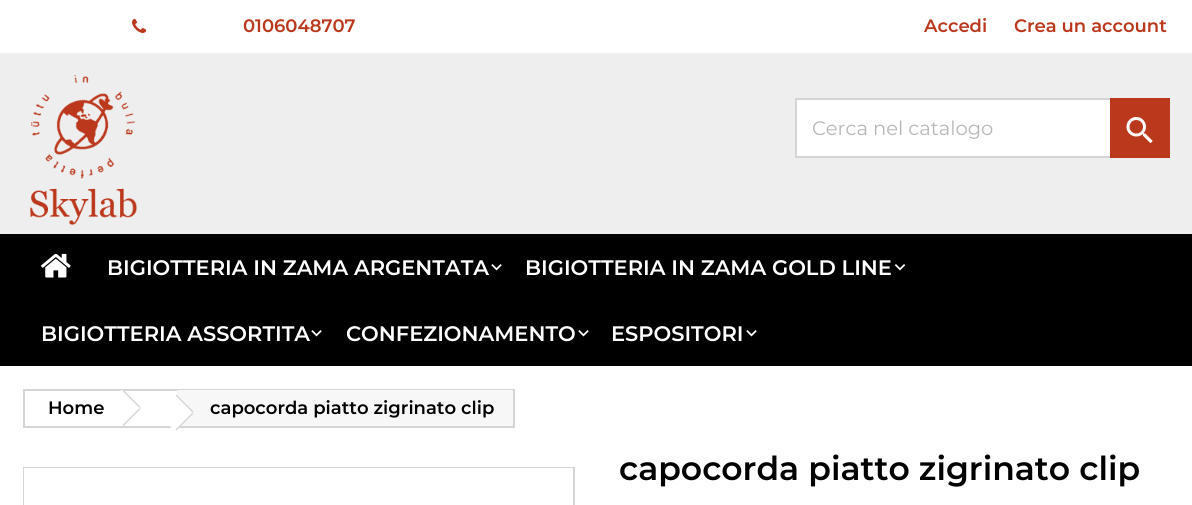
#include <cairo.h>
#include <math.h>
#include <stddef.h>


static void picture(cairo_t *cr, const char *path, double x, double y, double w, double h) {
    cairo_surface_t *image = cairo_image_surface_create_from_png(path);
    cairo_save(cr);
    cairo_set_source_surface(cr, image, x, y);
    cairo_rectangle(cr, x, y, w, h);
    cairo_fill(cr);
    cairo_restore(cr);
    cairo_surface_destroy(image);
}

int main(void) {
    cairo_surface_t *surface = cairo_image_surface_create(CAIRO_FORMAT_RGB24, 1192, 505);
    cairo_t *cr = cairo_create(surface);
    cairo_font_options_t *options = cairo_font_options_create();
    cairo_font_options_set_hint_metrics(options, CAIRO_HINT_METRICS_OFF);
    cairo_font_options_set_hint_style(options, CAIRO_HINT_STYLE_NONE);
    cairo_set_font_options(cr, options);
    cairo_set_miter_limit(cr, 4);
    cairo_set_source_rgb(cr, 1, 1, 1);
    cairo_paint(cr);
    picture(cr, "img1.png", 132, 18, 15, 15);
    cairo_select_font_face(cr, "Montserrat SemiBold", CAIRO_FONT_SLANT_NORMAL, CAIRO_FONT_WEIGHT_NORMAL);
    cairo_set_font_size(cr, 18);
    cairo_set_source_rgb(cr, 0.729, 0.22, 0.11);
    cairo_move_to(cr, 243, 32);
    cairo_show_text(cr, "0106048707");
    cairo_move_to(cr, 924, 32);
    cairo_show_text(cr, "Accedi");
    cairo_move_to(cr, 1014, 32);
    cairo_show_text(cr, "Crea un account");
    cairo_set_source_rgb(cr, 0.933, 0.933, 0.933);
    cairo_rectangle(cr, 0, 53, 1192, 181);
    cairo_fill(cr);
    picture(cr, "img2.png", 30, 75, 107, 150);
    cairo_set_source_rgb(cr, 1, 1, 1);
    cairo_rectangle(cr, 797, 100, 313, 56);
    cairo_fill(cr);
    cairo_rectangle(cr, 796, 99, 373, 58);
    cairo_set_source_rgb(cr, 0.839, 0.831, 0.831);
    cairo_stroke(cr);
    cairo_select_font_face(cr, "Montserrat", CAIRO_FONT_SLANT_NORMAL, CAIRO_FONT_WEIGHT_NORMAL);
    cairo_set_font_size(cr, 19.5);
    cairo_set_source_rgb(cr, 0.718, 0.718, 0.718);
    cairo_move_to(cr, 812, 135);
    cairo_show_text(cr, "Cerca nel catalogo");
    cairo_set_source_rgb(cr, 0.729, 0.22, 0.11);
    cairo_rectangle(cr, 1110, 98, 60, 60);
    cairo_fill(cr);
    picture(cr, "img3.png", 1126, 117, 27, 27);
    cairo_set_source_rgb(cr, 0, 0, 0);
    cairo_rectangle(cr, 0, 234, 1192, 132);
    cairo_fill(cr);
    picture(cr, "img4.png", 41, 253, 30, 25);
    cairo_select_font_face(cr, "Montserrat SemiBold", CAIRO_FONT_SLANT_NORMAL, CAIRO_FONT_WEIGHT_NORMAL);
    cairo_set_font_size(cr, 21);
    cairo_set_source_rgb(cr, 1, 1, 1);
    cairo_move_to(cr, 107, 275);
    cairo_show_text(cr, "BIGIOTTERIA IN ZAMA ARGENTATA");
    picture(cr, "img5.png", 491, 264, 11, 7);
    cairo_move_to(cr, 525, 275);
    cairo_show_text(cr, "BIGIOTTERIA IN ZAMA GOLD LINE");
    picture(cr, "img6.png", 894, 264, 12, 7);
    cairo_move_to(cr, 41, 341);
    cairo_show_text(cr, "BIGIOTTERIA ASSORTITA");
    picture(cr, "img5.png", 311, 330, 11, 7);
    cairo_move_to(cr, 346, 341);
    cairo_show_text(cr, "CONFEZIONAMENTO");
    picture(cr, "img5.png", 578, 330, 11, 7);
    cairo_move_to(cr, 611, 341);
    cairo_show_text(cr, "ESPOSITORI");
    picture(cr, "img5.png", 746, 330, 11, 7);
    cairo_rectangle(cr, 24, 390, 490, 37);
    cairo_set_source_rgb(cr, 0.839, 0.831, 0.831);
    cairo_stroke(cr);
    cairo_set_font_size(cr, 18);
    cairo_set_source_rgb(cr, 0, 0, 0);
    cairo_move_to(cr, 48, 414);
    cairo_show_text(cr, "Home");
    cairo_set_source_rgb(cr, 1, 1, 1);
    cairo_new_path(cr);
    cairo_move_to(cr, 124.5, 391);
    cairo_line_to(cr, 139.5, 406);
    cairo_curve_to(cr, 140.5, 407, 140.5, 409, 139.5, 410);
    cairo_line_to(cr, 124.5, 425);
    cairo_curve_to(cr, 123.5, 426, 121.5, 426, 120, 425);
    cairo_line_to(cr, 105.5, 410);
    cairo_curve_to(cr, 104, 409, 104, 407, 105.5, 406);
    cairo_line_to(cr, 120, 391);
    cairo_curve_to(cr, 121.5, 390, 123.5, 390, 124.5, 391);
    cairo_close_path(cr);
    cairo_fill(cr);
    cairo_set_source_rgb(cr, 0.839, 0.831, 0.831);
    cairo_new_path(cr);
    cairo_move_to(cr, 123.5, 390);
    cairo_line_to(cr, 140.5, 407);
    cairo_line_to(cr, 139.5, 408);
    cairo_line_to(cr, 122.5, 391);
    cairo_close_path(cr);
    cairo_move_to(cr, 139.5, 408);
    cairo_line_to(cr, 140.5, 409);
    cairo_line_to(cr, 123.5, 426);
    cairo_line_to(cr, 122.5, 425);
    cairo_close_path(cr);
    cairo_fill(cr);
    cairo_set_source_rgb(cr, 0.965, 0.965, 0.965);
    cairo_rectangle(cr, 177, 390, 336, 36);
    cairo_fill(cr);
    cairo_set_source_rgb(cr, 1, 1, 1);
    cairo_new_path(cr);
    cairo_move_to(cr, 177.5, 395.5);
    cairo_line_to(cr, 192.5, 410.5);
    cairo_curve_to(cr, 193.5, 411.5, 193.5, 413.5, 192.5, 414.5);
    cairo_line_to(cr, 177.5, 429.5);
    cairo_curve_to(cr, 176.5, 430.5, 174.5, 430.5, 173, 429.5);
    cairo_line_to(cr, 158.5, 414.5);
    cairo_curve_to(cr, 157, 413.5, 157, 411.5, 158.5, 410.5);
    cairo_line_to(cr, 173, 395.5);
    cairo_curve_to(cr, 174.5, 394.5, 176.5, 394.5, 177.5, 395.5);
    cairo_close_path(cr);
    cairo_fill(cr);
    cairo_set_source_rgb(cr, 0.839, 0.831, 0.831);
    cairo_new_path(cr);
    cairo_move_to(cr, 176.5, 394.5);
    cairo_line_to(cr, 193.5, 411.5);
    cairo_line_to(cr, 192.5, 412.5);
    cairo_line_to(cr, 175.5, 395.5);
    cairo_close_path(cr);
    cairo_fill(cr);
    cairo_new_path(cr);
    cairo_move_to(cr, 192.5, 412.5);
    cairo_line_to(cr, 193.5, 413.5);
    cairo_line_to(cr, 176.5, 430.5);
    cairo_line_to(cr, 175.5, 429.5);
    cairo_close_path(cr);
    cairo_fill(cr);
    cairo_set_source_rgb(cr, 0, 0, 0);
    cairo_move_to(cr, 210, 414);
    cairo_show_text(cr, "capocorda piatto zigrinato clip");
    cairo_rectangle(cr, 24, 468, 550, 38);
    cairo_set_source_rgb(cr, 0.839, 0.831, 0.831);
    cairo_stroke(cr);
    cairo_set_source_rgb(cr, 1, 1, 1);
    cairo_rectangle(cr, 24, 468, 549, 37);
    cairo_fill(cr);
    cairo_set_font_size(cr, 33);
    cairo_set_source_rgb(cr, 0, 0, 0);
    cairo_move_to(cr, 619, 480);
    cairo_show_text(cr, "capocorda piatto zigrinato clip");
    cairo_surface_write_to_png(surface, "page.png");
    cairo_font_options_destroy(options);
    cairo_destroy(cr);
    cairo_surface_destroy(surface);
    return 0;
}
